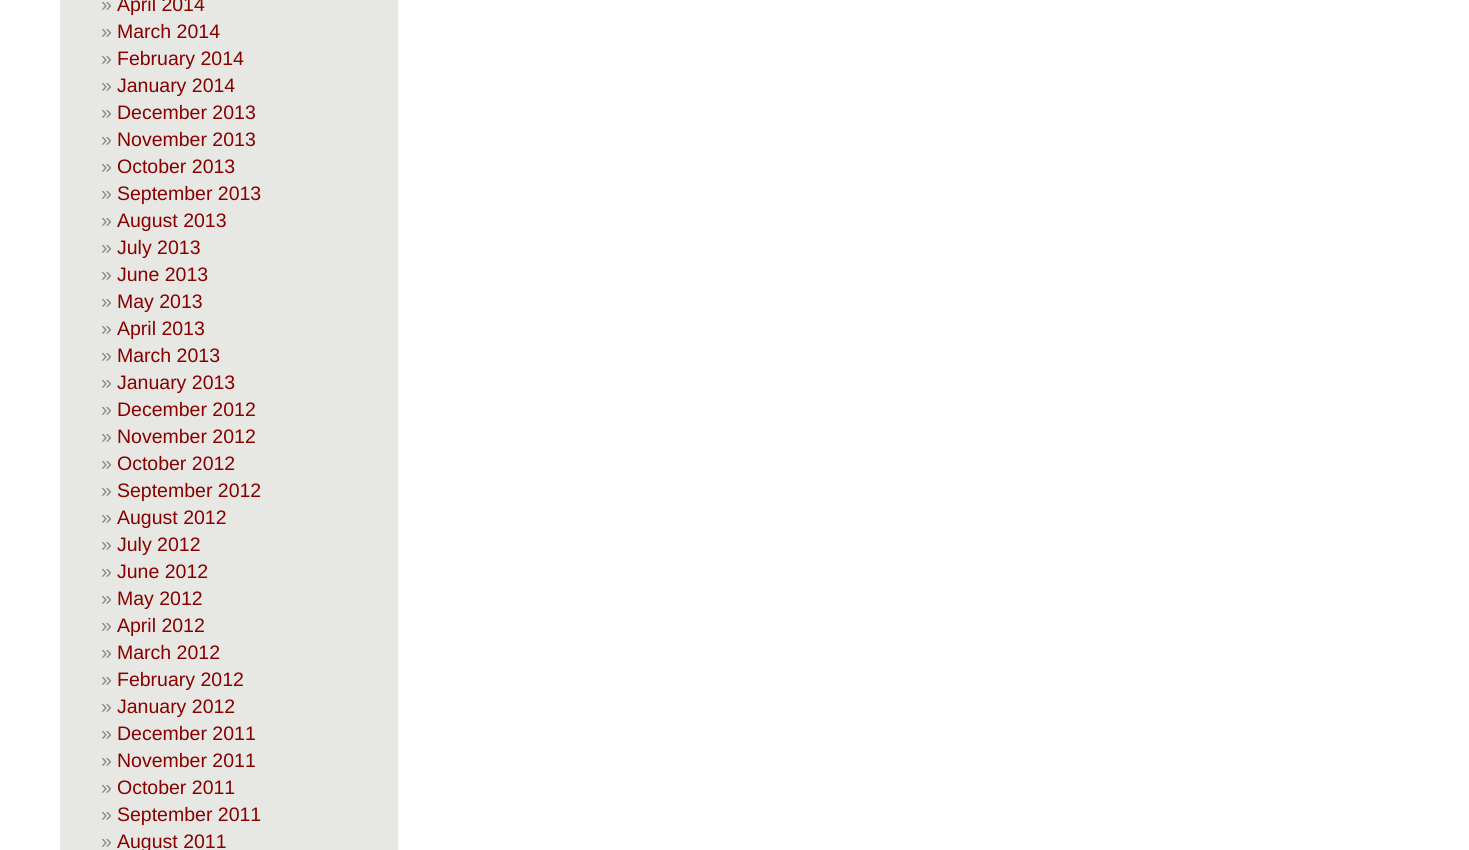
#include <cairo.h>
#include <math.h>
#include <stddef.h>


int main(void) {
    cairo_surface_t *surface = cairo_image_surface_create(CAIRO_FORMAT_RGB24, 1469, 850);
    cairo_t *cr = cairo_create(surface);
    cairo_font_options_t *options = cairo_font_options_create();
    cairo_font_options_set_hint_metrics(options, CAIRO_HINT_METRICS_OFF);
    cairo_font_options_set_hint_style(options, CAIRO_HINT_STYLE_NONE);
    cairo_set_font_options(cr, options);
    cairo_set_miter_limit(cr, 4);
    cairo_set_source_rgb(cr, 1, 1, 1);
    cairo_paint(cr);
    cairo_set_source_rgb(cr, 0.906, 0.906, 0.89);
    cairo_rectangle(cr, 60, 0, 338, 850);
    cairo_fill(cr);
    cairo_select_font_face(cr, "Liberation Sans", CAIRO_FONT_SLANT_NORMAL, CAIRO_FONT_WEIGHT_NORMAL);
    cairo_set_font_size(cr, 19.5);
    cairo_set_source_rgb(cr, 0.533, 0.533, 0.533);
    cairo_move_to(cr, 101, 11);
    cairo_show_text(cr, "»");
    cairo_set_source_rgb(cr, 0.529, 0, 0);
    cairo_move_to(cr, 117, 11);
    cairo_show_text(cr, "April 2014");
    cairo_set_source_rgb(cr, 0.533, 0.533, 0.533);
    cairo_move_to(cr, 101, 38);
    cairo_show_text(cr, "»");
    cairo_set_source_rgb(cr, 0.529, 0, 0);
    cairo_move_to(cr, 117, 38);
    cairo_show_text(cr, "March 2014");
    cairo_set_source_rgb(cr, 0.533, 0.533, 0.533);
    cairo_move_to(cr, 101, 65);
    cairo_show_text(cr, "»");
    cairo_set_source_rgb(cr, 0.529, 0, 0);
    cairo_move_to(cr, 117, 65);
    cairo_show_text(cr, "February 2014");
    cairo_set_source_rgb(cr, 0.533, 0.533, 0.533);
    cairo_move_to(cr, 101, 92);
    cairo_show_text(cr, "»");
    cairo_set_source_rgb(cr, 0.529, 0, 0);
    cairo_move_to(cr, 117, 92);
    cairo_show_text(cr, "January 2014");
    cairo_set_source_rgb(cr, 0.533, 0.533, 0.533);
    cairo_move_to(cr, 101, 119);
    cairo_show_text(cr, "»");
    cairo_set_source_rgb(cr, 0.529, 0, 0);
    cairo_move_to(cr, 117, 119);
    cairo_show_text(cr, "December 2013");
    cairo_set_source_rgb(cr, 0.533, 0.533, 0.533);
    cairo_move_to(cr, 101, 146);
    cairo_show_text(cr, "»");
    cairo_set_source_rgb(cr, 0.529, 0, 0);
    cairo_move_to(cr, 117, 146);
    cairo_show_text(cr, "November 2013");
    cairo_set_source_rgb(cr, 0.533, 0.533, 0.533);
    cairo_move_to(cr, 101, 173);
    cairo_show_text(cr, "»");
    cairo_set_source_rgb(cr, 0.529, 0, 0);
    cairo_move_to(cr, 117, 173);
    cairo_show_text(cr, "October 2013");
    cairo_set_source_rgb(cr, 0.533, 0.533, 0.533);
    cairo_move_to(cr, 101, 200);
    cairo_show_text(cr, "»");
    cairo_set_source_rgb(cr, 0.529, 0, 0);
    cairo_move_to(cr, 117, 200);
    cairo_show_text(cr, "September 2013");
    cairo_set_source_rgb(cr, 0.533, 0.533, 0.533);
    cairo_move_to(cr, 101, 227);
    cairo_show_text(cr, "»");
    cairo_set_source_rgb(cr, 0.529, 0, 0);
    cairo_move_to(cr, 117, 227);
    cairo_show_text(cr, "August 2013");
    cairo_set_source_rgb(cr, 0.533, 0.533, 0.533);
    cairo_move_to(cr, 101, 254);
    cairo_show_text(cr, "»");
    cairo_set_source_rgb(cr, 0.529, 0, 0);
    cairo_move_to(cr, 117, 254);
    cairo_show_text(cr, "July 2013");
    cairo_set_source_rgb(cr, 0.533, 0.533, 0.533);
    cairo_move_to(cr, 101, 281);
    cairo_show_text(cr, "»");
    cairo_set_source_rgb(cr, 0.529, 0, 0);
    cairo_move_to(cr, 117, 281);
    cairo_show_text(cr, "June 2013");
    cairo_set_source_rgb(cr, 0.533, 0.533, 0.533);
    cairo_move_to(cr, 101, 308);
    cairo_show_text(cr, "»");
    cairo_set_source_rgb(cr, 0.529, 0, 0);
    cairo_move_to(cr, 117, 308);
    cairo_show_text(cr, "May 2013");
    cairo_set_source_rgb(cr, 0.533, 0.533, 0.533);
    cairo_move_to(cr, 101, 335);
    cairo_show_text(cr, "»");
    cairo_set_source_rgb(cr, 0.529, 0, 0);
    cairo_move_to(cr, 117, 335);
    cairo_show_text(cr, "April 2013");
    cairo_set_source_rgb(cr, 0.533, 0.533, 0.533);
    cairo_move_to(cr, 101, 362);
    cairo_show_text(cr, "»");
    cairo_set_source_rgb(cr, 0.529, 0, 0);
    cairo_move_to(cr, 117, 362);
    cairo_show_text(cr, "March 2013");
    cairo_set_source_rgb(cr, 0.533, 0.533, 0.533);
    cairo_move_to(cr, 101, 389);
    cairo_show_text(cr, "»");
    cairo_set_source_rgb(cr, 0.529, 0, 0);
    cairo_move_to(cr, 117, 389);
    cairo_show_text(cr, "January 2013");
    cairo_set_source_rgb(cr, 0.533, 0.533, 0.533);
    cairo_move_to(cr, 101, 416);
    cairo_show_text(cr, "»");
    cairo_set_source_rgb(cr, 0.529, 0, 0);
    cairo_move_to(cr, 117, 416);
    cairo_show_text(cr, "December 2012");
    cairo_set_source_rgb(cr, 0.533, 0.533, 0.533);
    cairo_move_to(cr, 101, 443);
    cairo_show_text(cr, "»");
    cairo_set_source_rgb(cr, 0.529, 0, 0);
    cairo_move_to(cr, 117, 443);
    cairo_show_text(cr, "November 2012");
    cairo_set_source_rgb(cr, 0.533, 0.533, 0.533);
    cairo_move_to(cr, 101, 470);
    cairo_show_text(cr, "»");
    cairo_set_source_rgb(cr, 0.529, 0, 0);
    cairo_move_to(cr, 117, 470);
    cairo_show_text(cr, "October 2012");
    cairo_set_source_rgb(cr, 0.533, 0.533, 0.533);
    cairo_move_to(cr, 101, 497);
    cairo_show_text(cr, "»");
    cairo_set_source_rgb(cr, 0.529, 0, 0);
    cairo_move_to(cr, 117, 497);
    cairo_show_text(cr, "September 2012");
    cairo_set_source_rgb(cr, 0.533, 0.533, 0.533);
    cairo_move_to(cr, 101, 524);
    cairo_show_text(cr, "»");
    cairo_set_source_rgb(cr, 0.529, 0, 0);
    cairo_move_to(cr, 117, 524);
    cairo_show_text(cr, "August 2012");
    cairo_set_source_rgb(cr, 0.533, 0.533, 0.533);
    cairo_move_to(cr, 101, 551);
    cairo_show_text(cr, "»");
    cairo_set_source_rgb(cr, 0.529, 0, 0);
    cairo_move_to(cr, 117, 551);
    cairo_show_text(cr, "July 2012");
    cairo_set_source_rgb(cr, 0.533, 0.533, 0.533);
    cairo_move_to(cr, 101, 578);
    cairo_show_text(cr, "»");
    cairo_set_source_rgb(cr, 0.529, 0, 0);
    cairo_move_to(cr, 117, 578);
    cairo_show_text(cr, "June 2012");
    cairo_set_source_rgb(cr, 0.533, 0.533, 0.533);
    cairo_move_to(cr, 101, 605);
    cairo_show_text(cr, "»");
    cairo_set_source_rgb(cr, 0.529, 0, 0);
    cairo_move_to(cr, 117, 605);
    cairo_show_text(cr, "May 2012");
    cairo_set_source_rgb(cr, 0.533, 0.533, 0.533);
    cairo_move_to(cr, 101, 632);
    cairo_show_text(cr, "»");
    cairo_set_source_rgb(cr, 0.529, 0, 0);
    cairo_move_to(cr, 117, 632);
    cairo_show_text(cr, "April 2012");
    cairo_set_source_rgb(cr, 0.533, 0.533, 0.533);
    cairo_move_to(cr, 101, 659);
    cairo_show_text(cr, "»");
    cairo_set_source_rgb(cr, 0.529, 0, 0);
    cairo_move_to(cr, 117, 659);
    cairo_show_text(cr, "March 2012");
    cairo_set_source_rgb(cr, 0.533, 0.533, 0.533);
    cairo_move_to(cr, 101, 686);
    cairo_show_text(cr, "»");
    cairo_set_source_rgb(cr, 0.529, 0, 0);
    cairo_move_to(cr, 117, 686);
    cairo_show_text(cr, "February 2012");
    cairo_set_source_rgb(cr, 0.533, 0.533, 0.533);
    cairo_move_to(cr, 101, 713);
    cairo_show_text(cr, "»");
    cairo_set_source_rgb(cr, 0.529, 0, 0);
    cairo_move_to(cr, 117, 713);
    cairo_show_text(cr, "January 2012");
    cairo_set_source_rgb(cr, 0.533, 0.533, 0.533);
    cairo_move_to(cr, 101, 740);
    cairo_show_text(cr, "»");
    cairo_set_source_rgb(cr, 0.529, 0, 0);
    cairo_move_to(cr, 117, 740);
    cairo_show_text(cr, "December 2011");
    cairo_set_source_rgb(cr, 0.533, 0.533, 0.533);
    cairo_move_to(cr, 101, 767);
    cairo_show_text(cr, "»");
    cairo_set_source_rgb(cr, 0.529, 0, 0);
    cairo_move_to(cr, 117, 767);
    cairo_show_text(cr, "November 2011");
    cairo_set_source_rgb(cr, 0.533, 0.533, 0.533);
    cairo_move_to(cr, 101, 794);
    cairo_show_text(cr, "»");
    cairo_set_source_rgb(cr, 0.529, 0, 0);
    cairo_move_to(cr, 117, 794);
    cairo_show_text(cr, "October 2011");
    cairo_set_source_rgb(cr, 0.533, 0.533, 0.533);
    cairo_move_to(cr, 101, 821);
    cairo_show_text(cr, "»");
    cairo_set_source_rgb(cr, 0.529, 0, 0);
    cairo_move_to(cr, 117, 821);
    cairo_show_text(cr, "September 2011");
    cairo_set_source_rgb(cr, 0.533, 0.533, 0.533);
    cairo_move_to(cr, 101, 848);
    cairo_show_text(cr, "»");
    cairo_set_source_rgb(cr, 0.529, 0, 0);
    cairo_move_to(cr, 117, 848);
    cairo_show_text(cr, "August 2011");
    cairo_surface_write_to_png(surface, "page.png");
    cairo_font_options_destroy(options);
    cairo_destroy(cr);
    cairo_surface_destroy(surface);
    return 0;
}
